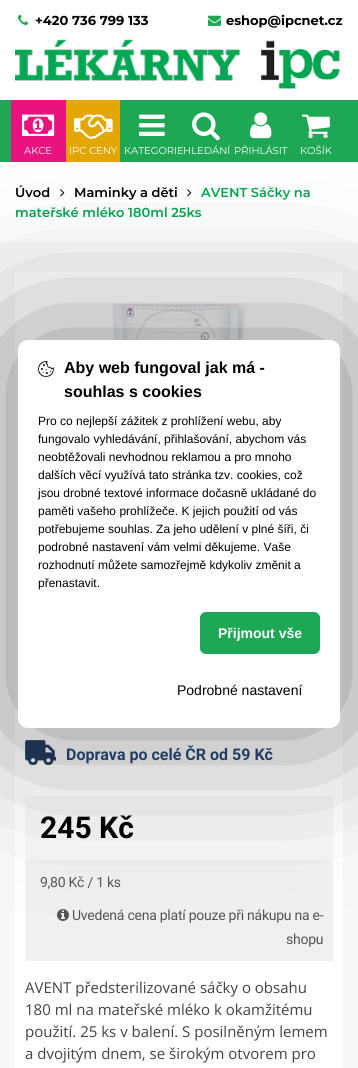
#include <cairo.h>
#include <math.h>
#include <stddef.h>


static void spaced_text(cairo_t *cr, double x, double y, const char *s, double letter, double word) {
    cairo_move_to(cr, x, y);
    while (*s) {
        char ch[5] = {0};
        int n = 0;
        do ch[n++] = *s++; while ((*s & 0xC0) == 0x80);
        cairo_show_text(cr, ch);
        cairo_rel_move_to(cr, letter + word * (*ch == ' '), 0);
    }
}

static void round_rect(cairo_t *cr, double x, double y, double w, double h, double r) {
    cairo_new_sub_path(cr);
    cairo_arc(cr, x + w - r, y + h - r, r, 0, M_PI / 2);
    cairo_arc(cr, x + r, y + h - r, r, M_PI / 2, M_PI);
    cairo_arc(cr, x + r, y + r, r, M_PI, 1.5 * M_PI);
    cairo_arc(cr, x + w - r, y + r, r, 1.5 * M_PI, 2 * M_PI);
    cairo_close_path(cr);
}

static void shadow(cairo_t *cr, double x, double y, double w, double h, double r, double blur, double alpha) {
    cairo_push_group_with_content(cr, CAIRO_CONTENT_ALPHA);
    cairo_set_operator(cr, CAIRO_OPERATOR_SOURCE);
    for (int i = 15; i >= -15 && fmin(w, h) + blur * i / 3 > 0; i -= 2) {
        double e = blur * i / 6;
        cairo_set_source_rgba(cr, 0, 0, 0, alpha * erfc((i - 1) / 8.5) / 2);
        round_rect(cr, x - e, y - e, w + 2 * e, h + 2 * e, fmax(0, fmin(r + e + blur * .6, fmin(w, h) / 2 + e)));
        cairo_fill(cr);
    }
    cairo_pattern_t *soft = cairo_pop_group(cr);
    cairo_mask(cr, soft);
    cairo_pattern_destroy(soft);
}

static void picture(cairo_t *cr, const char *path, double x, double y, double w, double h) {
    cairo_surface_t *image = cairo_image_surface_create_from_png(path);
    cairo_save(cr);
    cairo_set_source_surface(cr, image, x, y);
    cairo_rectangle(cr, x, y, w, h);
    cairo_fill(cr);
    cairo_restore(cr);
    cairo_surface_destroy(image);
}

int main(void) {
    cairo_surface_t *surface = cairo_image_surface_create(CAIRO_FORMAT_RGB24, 358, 1068);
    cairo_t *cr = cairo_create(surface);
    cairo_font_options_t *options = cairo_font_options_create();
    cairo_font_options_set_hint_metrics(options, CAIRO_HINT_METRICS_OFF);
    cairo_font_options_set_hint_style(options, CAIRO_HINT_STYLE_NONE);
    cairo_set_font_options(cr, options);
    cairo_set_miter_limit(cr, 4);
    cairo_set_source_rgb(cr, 1, 1, 1);
    cairo_paint(cr);
    picture(cr, "img1.png", 18, 14, 11, 11);
    cairo_select_font_face(cr, "Montserrat", CAIRO_FONT_SLANT_NORMAL, CAIRO_FONT_WEIGHT_BOLD);
    cairo_set_font_size(cr, 13);
    cairo_set_source_rgb(cr, 0, 0, 0);
    cairo_move_to(cr, 35, 25);
    cairo_show_text(cr, "+420 736 799 133");
    picture(cr, "img2.png", 208, 15, 13, 11);
    cairo_move_to(cr, 226, 25);
    cairo_show_text(cr, "eshop@ipcnet.cz");
    picture(cr, "img3.png", 15, 39, 326, 50);
    cairo_set_source_rgb(cr, 0.118, 0.655, 0.329);
    cairo_rectangle(cr, 0, 100, 358, 62);
    cairo_fill(cr);
    cairo_set_source_rgb(cr, 0.914, 0.078, 0.502);
    cairo_rectangle(cr, 11, 100, 55, 62);
    cairo_fill(cr);
    picture(cr, "img4.png", 22, 114, 33, 22);
    cairo_select_font_face(cr, "Montserrat", CAIRO_FONT_SLANT_NORMAL, CAIRO_FONT_WEIGHT_NORMAL);
    cairo_set_font_size(cr, 10);
    cairo_set_source_rgb(cr, 1, 1, 1);
    cairo_move_to(cr, 24, 154);
    cairo_show_text(cr, "AKCE");
    cairo_set_source_rgb(cr, 0.894, 0.655, 0.004);
    cairo_rectangle(cr, 66, 100, 54, 62);
    cairo_fill(cr);
    picture(cr, "img5.png", 74, 114, 39, 25);
    cairo_set_source_rgb(cr, 1, 1, 1);
    cairo_move_to(cr, 69, 154);
    cairo_show_text(cr, "IPC CENY");
    picture(cr, "img6.png", 139, 114, 26, 22);
    cairo_move_to(cr, 124, 154);
    cairo_show_text(cr, "KATEGORIE");
    picture(cr, "img7.png", 192, 112, 28, 29);
    cairo_move_to(cr, 183, 154);
    cairo_show_text(cr, "HLEDÁNÍ");
    picture(cr, "img8.png", 250, 112, 22, 27);
    cairo_move_to(cr, 234, 154);
    cairo_show_text(cr, "PŘIHLÁSIT");
    picture(cr, "img9.png", 302, 114, 28, 25);
    cairo_move_to(cr, 300, 154);
    cairo_show_text(cr, "KOŠÍK");
    cairo_select_font_face(cr, "Montserrat SemiBold", CAIRO_FONT_SLANT_NORMAL, CAIRO_FONT_WEIGHT_NORMAL);
    cairo_set_font_size(cr, 13);
    cairo_set_source_rgb(cr, 0, 0, 0);
    cairo_move_to(cr, 15, 197);
    cairo_show_text(cr, "Úvod");
    picture(cr, "img10.png", 60, 189, 5, 8);
    cairo_move_to(cr, 74, 197);
    cairo_show_text(cr, "Maminky a děti");
    picture(cr, "img10.png", 187, 189, 5, 8);
    cairo_set_source_rgb(cr, 0, 0.651, 0.318);
    cairo_move_to(cr, 201, 197);
    cairo_show_text(cr, "AVENT Sáčky na");
    cairo_move_to(cr, 15, 217);
    cairo_show_text(cr, "mateřské mléko 180ml 25ks");
    cairo_set_source_rgb(cr, 0.969, 0.969, 0.969);
    cairo_rectangle(cr, 0, 242, 358, 826);
    cairo_fill(cr);
    cairo_set_source_rgb(cr, 1, 1, 1);
    cairo_rectangle(cr, 15, 272, 328, 796);
    cairo_fill(cr);
    picture(cr, "img12.png", 113, 303, 133, 37);
    picture(cr, "img13.png", 25, 740, 31, 25);
    cairo_set_source_rgb(cr, 0.969, 0.969, 0.969);
    cairo_rectangle(cr, 25, 796, 308, 64);
    cairo_fill(cr);
    cairo_set_source_rgb(cr, 0.941, 0.941, 0.941);
    cairo_rectangle(cr, 25, 860, 308, 101);
    cairo_fill(cr);
    picture(cr, "img14.png", 57, 909, 12, 12);
    cairo_set_source_rgb(cr, 0, 0, 0);
    shadow(cr, 18, 340, 322, 388, 10, 75, 0.5);
    cairo_set_source_rgb(cr, 1, 1, 1);
    round_rect(cr, 18, 340, 322, 388, 10);
    cairo_fill(cr);
    picture(cr, "img11.png", 37, 361, 17, 16);
    cairo_select_font_face(cr, "Liberation Sans", CAIRO_FONT_SLANT_NORMAL, CAIRO_FONT_WEIGHT_BOLD);
    cairo_set_font_size(cr, 16);
    cairo_set_source_rgb(cr, 0, 0, 0);
    cairo_move_to(cr, 64, 373);
    cairo_show_text(cr, "Aby web fungoval jak má -");
    cairo_move_to(cr, 64, 397);
    cairo_show_text(cr, "souhlas s cookies");
    cairo_select_font_face(cr, "Liberation Sans", CAIRO_FONT_SLANT_NORMAL, CAIRO_FONT_WEIGHT_NORMAL);
    cairo_set_font_size(cr, 12);
    cairo_move_to(cr, 38, 425);
    cairo_show_text(cr, "Pro co nejlepší zážitek z prohlížení webu, aby");
    cairo_move_to(cr, 38, 443);
    cairo_show_text(cr, "fungovalo vyhledávání, přihlašování, abychom vás");
    cairo_move_to(cr, 38, 461);
    cairo_show_text(cr, "neobtěžovali nevhodnou reklamou a pro mnoho");
    cairo_move_to(cr, 38, 479);
    cairo_show_text(cr, "dalších věcí využívá tato stránka tzv. cookies, což");
    cairo_move_to(cr, 38, 497);
    cairo_show_text(cr, "jsou drobné textové informace dočasně ukládané do");
    cairo_move_to(cr, 38, 515);
    cairo_show_text(cr, "paměti vašeho prohlížeče. K jejich použití od vás");
    cairo_move_to(cr, 38, 533);
    cairo_show_text(cr, "potřebujeme souhlas. Za jeho udělení v plné šíři, či");
    cairo_move_to(cr, 38, 551);
    cairo_show_text(cr, "podrobné nastavení vám velmi děkujeme. Vaše");
    cairo_move_to(cr, 38, 569);
    cairo_show_text(cr, "rozhodnutí můžete samozřejmě kdykoliv změnit a");
    cairo_move_to(cr, 38, 587);
    cairo_show_text(cr, "přenastavit.");
    cairo_set_source_rgb(cr, 0.118, 0.655, 0.329);
    round_rect(cr, 201, 613, 118, 40, 5);
    cairo_fill_preserve(cr);
    cairo_stroke(cr);
    cairo_select_font_face(cr, "Liberation Sans", CAIRO_FONT_SLANT_NORMAL, CAIRO_FONT_WEIGHT_BOLD);
    cairo_set_font_size(cr, 14);
    cairo_set_source_rgb(cr, 1, 1, 1);
    cairo_move_to(cr, 218, 638);
    cairo_show_text(cr, "Přijmout vše");
    cairo_select_font_face(cr, "Liberation Sans", CAIRO_FONT_SLANT_NORMAL, CAIRO_FONT_WEIGHT_NORMAL);
    cairo_set_source_rgb(cr, 0, 0, 0);
    cairo_move_to(cr, 177, 695);
    cairo_show_text(cr, "Podrobné nastavení");
    cairo_select_font_face(cr, "Roboto", CAIRO_FONT_SLANT_NORMAL, CAIRO_FONT_WEIGHT_BOLD);
    cairo_set_font_size(cr, 16);
    cairo_set_source_rgb(cr, 0.133, 0.239, 0.384);
    cairo_move_to(cr, 66, 760);
    cairo_show_text(cr, "Doprava po celé ČR od 59 Kč");
    cairo_set_font_size(cr, 30);
    cairo_set_source_rgb(cr, 0, 0, 0);
    cairo_move_to(cr, 40, 838);
    cairo_show_text(cr, "245 Kč");
    cairo_select_font_face(cr, "Roboto", CAIRO_FONT_SLANT_NORMAL, CAIRO_FONT_WEIGHT_NORMAL);
    cairo_set_font_size(cr, 14);
    cairo_set_source_rgb(cr, 0.333, 0.333, 0.333);
    spaced_text(cr, 40, 887, "9,80 Kč / 1 ks", -0.25, 0);
    spaced_text(cr, 72, 920, "Uvedená cena platí pouze při nákupu na e-", -0.25, 0);
    spaced_text(cr, 286, 944, "shopu", -0.25, 0);
    cairo_select_font_face(cr, "Open Sans", CAIRO_FONT_SLANT_NORMAL, CAIRO_FONT_WEIGHT_NORMAL);
    cairo_set_font_size(cr, 15);
    cairo_set_source_rgb(cr, 0.263, 0.263, 0.263);
    cairo_move_to(cr, 25, 993);
    cairo_show_text(cr, "AVENT předsterilizované sáčky o obsahu");
    cairo_move_to(cr, 25, 1015);
    cairo_show_text(cr, "180 ml na mateřské mléko k okamžitému");
    cairo_move_to(cr, 25, 1037);
    cairo_show_text(cr, "použití. 25 ks v balení. S posilněným lemem");
    cairo_move_to(cr, 25, 1059);
    cairo_show_text(cr, "a dvojitým dnem, se širokým otvorem pro");
    cairo_surface_write_to_png(surface, "page.png");
    cairo_font_options_destroy(options);
    cairo_destroy(cr);
    cairo_surface_destroy(surface);
    return 0;
}
